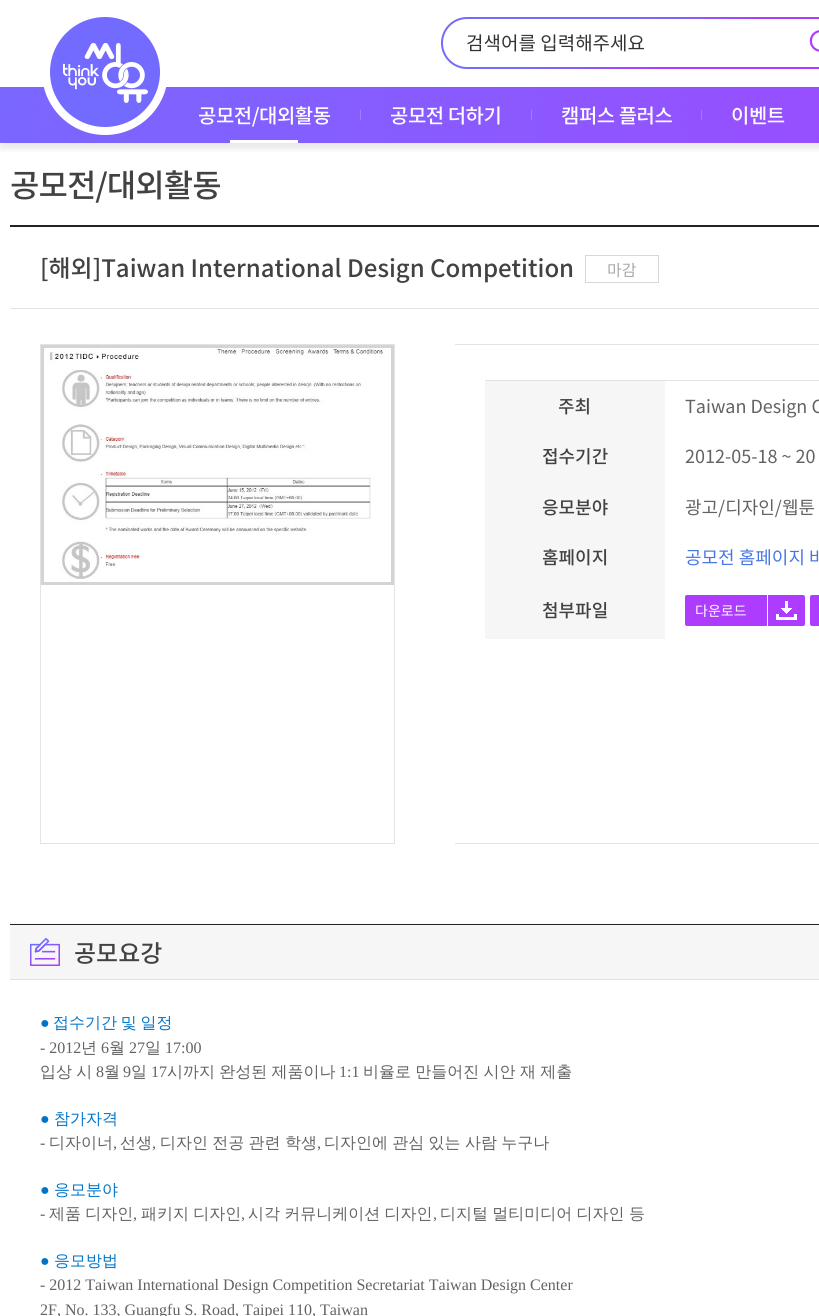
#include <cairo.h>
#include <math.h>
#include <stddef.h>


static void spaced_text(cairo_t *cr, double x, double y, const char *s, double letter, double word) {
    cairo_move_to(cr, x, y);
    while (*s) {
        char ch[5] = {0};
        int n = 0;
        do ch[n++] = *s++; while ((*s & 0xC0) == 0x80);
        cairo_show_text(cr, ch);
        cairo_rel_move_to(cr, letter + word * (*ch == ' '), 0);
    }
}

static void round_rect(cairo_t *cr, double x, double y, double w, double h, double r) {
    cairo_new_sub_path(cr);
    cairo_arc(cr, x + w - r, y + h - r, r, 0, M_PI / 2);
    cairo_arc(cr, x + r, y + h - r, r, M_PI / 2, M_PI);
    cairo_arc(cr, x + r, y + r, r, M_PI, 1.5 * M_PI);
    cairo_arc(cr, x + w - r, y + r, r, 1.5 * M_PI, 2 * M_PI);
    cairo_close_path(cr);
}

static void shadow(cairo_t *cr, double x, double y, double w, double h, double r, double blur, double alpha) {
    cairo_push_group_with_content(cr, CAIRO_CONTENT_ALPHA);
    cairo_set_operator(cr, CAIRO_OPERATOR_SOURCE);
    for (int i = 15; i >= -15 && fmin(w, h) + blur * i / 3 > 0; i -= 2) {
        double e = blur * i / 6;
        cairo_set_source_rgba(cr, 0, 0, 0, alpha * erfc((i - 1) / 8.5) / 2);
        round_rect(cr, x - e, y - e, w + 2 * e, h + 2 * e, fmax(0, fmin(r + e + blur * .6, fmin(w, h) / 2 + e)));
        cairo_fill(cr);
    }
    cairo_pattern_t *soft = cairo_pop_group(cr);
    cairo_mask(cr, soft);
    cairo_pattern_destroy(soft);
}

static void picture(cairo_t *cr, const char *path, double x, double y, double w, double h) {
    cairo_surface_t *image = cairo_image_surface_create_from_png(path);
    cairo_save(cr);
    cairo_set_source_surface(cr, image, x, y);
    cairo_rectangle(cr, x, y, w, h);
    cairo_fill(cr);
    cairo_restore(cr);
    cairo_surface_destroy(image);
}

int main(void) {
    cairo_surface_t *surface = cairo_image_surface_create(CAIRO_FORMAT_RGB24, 819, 1316);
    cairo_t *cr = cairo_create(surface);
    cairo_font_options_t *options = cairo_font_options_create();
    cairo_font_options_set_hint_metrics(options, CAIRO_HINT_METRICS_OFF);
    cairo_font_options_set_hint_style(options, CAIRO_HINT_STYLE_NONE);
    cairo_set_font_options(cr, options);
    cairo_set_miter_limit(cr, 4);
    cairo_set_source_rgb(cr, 1, 1, 1);
    cairo_paint(cr);
    cairo_save(cr);
    cairo_rectangle(cr, 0, 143, 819, 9);
    cairo_clip(cr);
    cairo_set_source_rgb(cr, 0.129, 0.129, 0.129);
    shadow(cr, 0, 6, 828, 143, 0, 3, 0.1);
    cairo_restore(cr);
    picture(cr, "img1.png", 0, 87, 819, 56);
    picture(cr, "img2.png", 43, 17, 124, 118);
    picture(cr, "img3.png", 441, 17, 378, 52);
    cairo_select_font_face(cr, "Noto Sans KR", CAIRO_FONT_SLANT_NORMAL, CAIRO_FONT_WEIGHT_NORMAL);
    cairo_set_font_size(cr, 19);
    cairo_set_source_rgb(cr, 0.2, 0.2, 0.2);
    cairo_move_to(cr, 466, 50);
    cairo_show_text(cr, "검색어를 입력해주세요");
    picture(cr, "img4.png", 809, 30, 10, 22);
    cairo_select_font_face(cr, "Noto Sans KR Medium", CAIRO_FONT_SLANT_NORMAL, CAIRO_FONT_WEIGHT_NORMAL);
    cairo_set_font_size(cr, 20);
    cairo_set_source_rgb(cr, 1, 1, 1);
    spaced_text(cr, 198, 123, "공모전/대외활동", -0.5, 0);
    cairo_rectangle(cr, 230, 140, 68, 3);
    cairo_fill(cr);
    cairo_set_source_rgb(cr, 0.62, 0.494, 1);
    cairo_rectangle(cr, 360, 110, 1, 10);
    cairo_fill(cr);
    cairo_set_source_rgb(cr, 1, 1, 1);
    spaced_text(cr, 390, 123, "공모전 더하기", -0.5, 0);
    cairo_set_source_rgb(cr, 0.643, 0.475, 1);
    cairo_rectangle(cr, 531, 110, 1, 10);
    cairo_fill(cr);
    cairo_set_source_rgb(cr, 1, 1, 1);
    spaced_text(cr, 561, 123, "캠퍼스 플러스", -0.5, 0);
    cairo_set_source_rgb(cr, 0.659, 0.459, 0.996);
    cairo_rectangle(cr, 701, 110, 1, 10);
    cairo_fill(cr);
    cairo_set_source_rgb(cr, 1, 1, 1);
    spaced_text(cr, 731, 123, "이벤트", -0.5, 0);
    cairo_set_font_size(cr, 32);
    cairo_set_source_rgb(cr, 0.259, 0.259, 0.259);
    spaced_text(cr, 10, 197, "공모전/대외활동", -1, 0);
    cairo_set_source_rgb(cr, 0.133, 0.133, 0.133);
    cairo_rectangle(cr, 10, 225, 809, 2);
    cairo_fill(cr);
    cairo_set_source_rgb(cr, 0.882, 0.894, 0.898);
    cairo_rectangle(cr, 10, 308, 809, 1);
    cairo_fill(cr);
    cairo_set_font_size(cr, 24);
    cairo_set_source_rgb(cr, 0.259, 0.259, 0.259);
    cairo_move_to(cr, 40, 277);
    cairo_show_text(cr, "[해외]Taiwan International Design Competition");
    cairo_rectangle(cr, 585.5, 255.5, 73, 27);
    cairo_set_source_rgb(cr, 0.831, 0.847, 0.851);
    cairo_set_line_width(cr, 1);
    cairo_stroke(cr);
    cairo_select_font_face(cr, "Noto Sans KR", CAIRO_FONT_SLANT_NORMAL, CAIRO_FONT_WEIGHT_NORMAL);
    cairo_set_font_size(cr, 16);
    cairo_set_source_rgb(cr, 0.667, 0.667, 0.667);
    cairo_move_to(cr, 607, 276);
    cairo_show_text(cr, "마감");
    cairo_rectangle(cr, 40.5, 344.5, 354, 499);
    cairo_set_source_rgb(cr, 0.882, 0.894, 0.898);
    cairo_stroke(cr);
    picture(cr, "img5.png", 41, 345, 353, 240);
    cairo_rectangle(cr, 455, 344, 364, 1);
    cairo_fill(cr);
    cairo_rectangle(cr, 455, 843, 364, 1);
    cairo_fill(cr);
    cairo_rectangle(cr, 485, 380, 334, 1);
    cairo_fill(cr);
    cairo_set_source_rgb(cr, 0.961, 0.961, 0.961);
    cairo_rectangle(cr, 485, 381, 180, 258);
    cairo_fill(cr);
    cairo_select_font_face(cr, "Noto Sans KR Medium", CAIRO_FONT_SLANT_NORMAL, CAIRO_FONT_WEIGHT_NORMAL);
    cairo_set_font_size(cr, 18);
    cairo_set_source_rgb(cr, 0.259, 0.259, 0.259);
    cairo_move_to(cr, 558, 413);
    cairo_show_text(cr, "주최");
    cairo_select_font_face(cr, "Noto Sans KR", CAIRO_FONT_SLANT_NORMAL, CAIRO_FONT_WEIGHT_NORMAL);
    cairo_set_source_rgb(cr, 0.384, 0.384, 0.384);
    cairo_move_to(cr, 685, 413);
    cairo_show_text(cr, "Taiwan Design C");
    cairo_select_font_face(cr, "Noto Sans KR Medium", CAIRO_FONT_SLANT_NORMAL, CAIRO_FONT_WEIGHT_NORMAL);
    cairo_set_source_rgb(cr, 0.259, 0.259, 0.259);
    cairo_move_to(cr, 542, 463);
    cairo_show_text(cr, "접수기간");
    cairo_select_font_face(cr, "Noto Sans KR", CAIRO_FONT_SLANT_NORMAL, CAIRO_FONT_WEIGHT_NORMAL);
    cairo_set_source_rgb(cr, 0.384, 0.384, 0.384);
    cairo_move_to(cr, 685, 463);
    cairo_show_text(cr, "2012-05-18 ~ 20");
    cairo_select_font_face(cr, "Noto Sans KR Medium", CAIRO_FONT_SLANT_NORMAL, CAIRO_FONT_WEIGHT_NORMAL);
    cairo_set_source_rgb(cr, 0.259, 0.259, 0.259);
    cairo_move_to(cr, 542, 514);
    cairo_show_text(cr, "응모분야");
    cairo_select_font_face(cr, "Noto Sans KR", CAIRO_FONT_SLANT_NORMAL, CAIRO_FONT_WEIGHT_NORMAL);
    cairo_set_source_rgb(cr, 0.384, 0.384, 0.384);
    cairo_move_to(cr, 685, 514);
    cairo_show_text(cr, "광고/디자인/웹툰");
    cairo_select_font_face(cr, "Noto Sans KR Medium", CAIRO_FONT_SLANT_NORMAL, CAIRO_FONT_WEIGHT_NORMAL);
    cairo_set_source_rgb(cr, 0.259, 0.259, 0.259);
    cairo_move_to(cr, 542, 564);
    cairo_show_text(cr, "홈페이지");
    cairo_select_font_face(cr, "Noto Sans KR", CAIRO_FONT_SLANT_NORMAL, CAIRO_FONT_WEIGHT_NORMAL);
    cairo_set_source_rgb(cr, 0.278, 0.463, 0.902);
    cairo_move_to(cr, 685, 564);
    cairo_show_text(cr, "공모전 홈페이지 바");
    cairo_select_font_face(cr, "Noto Sans KR Medium", CAIRO_FONT_SLANT_NORMAL, CAIRO_FONT_WEIGHT_NORMAL);
    cairo_set_source_rgb(cr, 0.259, 0.259, 0.259);
    cairo_move_to(cr, 542, 617);
    cairo_show_text(cr, "첨부파일");
    cairo_set_source_rgb(cr, 0.682, 0.235, 1);
    round_rect(cr, 685, 595, 120, 31, 2);
    cairo_fill(cr);
    picture(cr, "img6.png", 767, 595, 30, 31);
    cairo_select_font_face(cr, "Noto Sans KR", CAIRO_FONT_SLANT_NORMAL, CAIRO_FONT_WEIGHT_NORMAL);
    cairo_set_font_size(cr, 14);
    cairo_set_source_rgb(cr, 1, 1, 1);
    cairo_move_to(cr, 695, 616);
    cairo_show_text(cr, "다운로드");
    cairo_set_source_rgb(cr, 0.682, 0.235, 1);
    round_rect(cr, 810, 595, 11, 31, 2);
    cairo_fill(cr);
    cairo_set_source_rgb(cr, 0.961, 0.961, 0.961);
    cairo_rectangle(cr, 10, 925, 809, 54);
    cairo_fill(cr);
    picture(cr, "img7.png", 30, 938, 30, 28);
    cairo_set_source_rgb(cr, 0.133, 0.133, 0.133);
    cairo_rectangle(cr, 10, 924, 809, 1);
    cairo_fill(cr);
    cairo_set_source_rgb(cr, 0.882, 0.894, 0.898);
    cairo_rectangle(cr, 10, 979, 809, 1);
    cairo_fill(cr);
    cairo_select_font_face(cr, "Noto Sans KR Medium", CAIRO_FONT_SLANT_NORMAL, CAIRO_FONT_WEIGHT_NORMAL);
    cairo_set_font_size(cr, 24);
    cairo_set_source_rgb(cr, 0.259, 0.259, 0.259);
    cairo_move_to(cr, 74, 962);
    cairo_show_text(cr, "공모요강");
    cairo_select_font_face(cr, "Liberation Serif", CAIRO_FONT_SLANT_NORMAL, CAIRO_FONT_WEIGHT_NORMAL);
    cairo_set_font_size(cr, 16);
    cairo_set_source_rgb(cr, 0, 0.459, 0.784);
    cairo_move_to(cr, 40, 1028);
    cairo_show_text(cr, "●");
    cairo_select_font_face(cr, "WenQuanYi Zen Hei Medium", CAIRO_FONT_SLANT_NORMAL, CAIRO_FONT_WEIGHT_NORMAL);
    spaced_text(cr, 53, 1028, "접수기간 및 일정", 0, -1);
    cairo_select_font_face(cr, "Liberation Serif", CAIRO_FONT_SLANT_NORMAL, CAIRO_FONT_WEIGHT_NORMAL);
    cairo_set_source_rgb(cr, 0.384, 0.384, 0.384);
    cairo_move_to(cr, 40, 1053);
    cairo_show_text(cr, "- 2012");
    cairo_select_font_face(cr, "WenQuanYi Zen Hei Medium", CAIRO_FONT_SLANT_NORMAL, CAIRO_FONT_WEIGHT_NORMAL);
    cairo_move_to(cr, 81, 1053);
    cairo_show_text(cr, "년");
    cairo_select_font_face(cr, "Liberation Serif", CAIRO_FONT_SLANT_NORMAL, CAIRO_FONT_WEIGHT_NORMAL);
    cairo_move_to(cr, 101, 1053);
    cairo_show_text(cr, "6");
    cairo_select_font_face(cr, "WenQuanYi Zen Hei Medium", CAIRO_FONT_SLANT_NORMAL, CAIRO_FONT_WEIGHT_NORMAL);
    cairo_move_to(cr, 109, 1053);
    cairo_show_text(cr, "월");
    cairo_select_font_face(cr, "Liberation Serif", CAIRO_FONT_SLANT_NORMAL, CAIRO_FONT_WEIGHT_NORMAL);
    cairo_move_to(cr, 129, 1053);
    cairo_show_text(cr, "27");
    cairo_select_font_face(cr, "WenQuanYi Zen Hei Medium", CAIRO_FONT_SLANT_NORMAL, CAIRO_FONT_WEIGHT_NORMAL);
    cairo_move_to(cr, 145, 1053);
    cairo_show_text(cr, "일");
    cairo_select_font_face(cr, "Liberation Serif", CAIRO_FONT_SLANT_NORMAL, CAIRO_FONT_WEIGHT_NORMAL);
    cairo_move_to(cr, 165, 1053);
    cairo_show_text(cr, "17:00");
    cairo_select_font_face(cr, "WenQuanYi Zen Hei Medium", CAIRO_FONT_SLANT_NORMAL, CAIRO_FONT_WEIGHT_NORMAL);
    spaced_text(cr, 40, 1077, "입상 시", 0, -0.5);
    cairo_select_font_face(cr, "Liberation Serif", CAIRO_FONT_SLANT_NORMAL, CAIRO_FONT_WEIGHT_NORMAL);
    cairo_move_to(cr, 96, 1077);
    cairo_show_text(cr, "8");
    cairo_select_font_face(cr, "WenQuanYi Zen Hei Medium", CAIRO_FONT_SLANT_NORMAL, CAIRO_FONT_WEIGHT_NORMAL);
    cairo_move_to(cr, 104, 1077);
    cairo_show_text(cr, "월");
    cairo_select_font_face(cr, "Liberation Serif", CAIRO_FONT_SLANT_NORMAL, CAIRO_FONT_WEIGHT_NORMAL);
    cairo_move_to(cr, 123, 1077);
    cairo_show_text(cr, "9");
    cairo_select_font_face(cr, "WenQuanYi Zen Hei Medium", CAIRO_FONT_SLANT_NORMAL, CAIRO_FONT_WEIGHT_NORMAL);
    cairo_move_to(cr, 131, 1077);
    cairo_show_text(cr, "일");
    cairo_select_font_face(cr, "Liberation Serif", CAIRO_FONT_SLANT_NORMAL, CAIRO_FONT_WEIGHT_NORMAL);
    cairo_move_to(cr, 151, 1077);
    cairo_show_text(cr, "17");
    cairo_select_font_face(cr, "WenQuanYi Zen Hei Medium", CAIRO_FONT_SLANT_NORMAL, CAIRO_FONT_WEIGHT_NORMAL);
    spaced_text(cr, 167, 1077, "시까지 완성된 제품이나", 0, -0.5);
    cairo_select_font_face(cr, "Liberation Serif", CAIRO_FONT_SLANT_NORMAL, CAIRO_FONT_WEIGHT_NORMAL);
    cairo_move_to(cr, 339, 1077);
    cairo_show_text(cr, "1:1");
    cairo_select_font_face(cr, "WenQuanYi Zen Hei Medium", CAIRO_FONT_SLANT_NORMAL, CAIRO_FONT_WEIGHT_NORMAL);
    spaced_text(cr, 363, 1077, "비율로 만들어진 시안 재 제출", 0, -0.5);
    cairo_select_font_face(cr, "Liberation Serif", CAIRO_FONT_SLANT_NORMAL, CAIRO_FONT_WEIGHT_NORMAL);
    cairo_set_source_rgb(cr, 0, 0.459, 0.784);
    cairo_move_to(cr, 40, 1124);
    cairo_show_text(cr, "●");
    cairo_select_font_face(cr, "WenQuanYi Zen Hei Medium", CAIRO_FONT_SLANT_NORMAL, CAIRO_FONT_WEIGHT_NORMAL);
    cairo_move_to(cr, 54, 1124);
    cairo_show_text(cr, "참가자격");
    cairo_select_font_face(cr, "Liberation Serif", CAIRO_FONT_SLANT_NORMAL, CAIRO_FONT_WEIGHT_NORMAL);
    cairo_set_source_rgb(cr, 0.384, 0.384, 0.384);
    cairo_move_to(cr, 40, 1148);
    cairo_show_text(cr, "-");
    cairo_select_font_face(cr, "WenQuanYi Zen Hei Medium", CAIRO_FONT_SLANT_NORMAL, CAIRO_FONT_WEIGHT_NORMAL);
    cairo_move_to(cr, 49, 1148);
    cairo_show_text(cr, "디자이너");
    cairo_move_to(cr, 120, 1148);
    cairo_show_text(cr, "선생");
    spaced_text(cr, 160, 1148, "디자인 전공 관련 학생", 0, -0.5);
    spaced_text(cr, 324, 1148, "디자인에 관심 있는 사람 누구나", 0, -0.5);
    cairo_select_font_face(cr, "Liberation Serif", CAIRO_FONT_SLANT_NORMAL, CAIRO_FONT_WEIGHT_NORMAL);
    cairo_move_to(cr, 113, 1148);
    cairo_show_text(cr, ",");
    cairo_move_to(cr, 152, 1148);
    cairo_show_text(cr, ",");
    cairo_move_to(cr, 317, 1148);
    cairo_show_text(cr, ",");
    cairo_set_source_rgb(cr, 0, 0.459, 0.784);
    cairo_move_to(cr, 40, 1195);
    cairo_show_text(cr, "●");
    cairo_select_font_face(cr, "WenQuanYi Zen Hei Medium", CAIRO_FONT_SLANT_NORMAL, CAIRO_FONT_WEIGHT_NORMAL);
    cairo_move_to(cr, 54, 1195);
    cairo_show_text(cr, "응모분야");
    cairo_select_font_face(cr, "Liberation Serif", CAIRO_FONT_SLANT_NORMAL, CAIRO_FONT_WEIGHT_NORMAL);
    cairo_set_source_rgb(cr, 0.384, 0.384, 0.384);
    cairo_move_to(cr, 40, 1219);
    cairo_show_text(cr, "-");
    cairo_select_font_face(cr, "WenQuanYi Zen Hei Medium", CAIRO_FONT_SLANT_NORMAL, CAIRO_FONT_WEIGHT_NORMAL);
    spaced_text(cr, 49, 1219, "제품 디자인", 0, -0.5);
    spaced_text(cr, 141, 1219, "패키지 디자인", 0, -0.5);
    spaced_text(cr, 248, 1219, "시각 커뮤니케이션 디자인", 0, -0.5);
    spaced_text(cr, 440, 1219, "디지털 멀티미디어 디자인 등", 0, -0.5);
    cairo_select_font_face(cr, "Liberation Serif", CAIRO_FONT_SLANT_NORMAL, CAIRO_FONT_WEIGHT_NORMAL);
    cairo_move_to(cr, 133, 1219);
    cairo_show_text(cr, ",");
    cairo_move_to(cr, 241, 1219);
    cairo_show_text(cr, ",");
    cairo_move_to(cr, 433, 1219);
    cairo_show_text(cr, ",");
    cairo_set_source_rgb(cr, 0, 0.459, 0.784);
    cairo_move_to(cr, 40, 1266);
    cairo_show_text(cr, "●");
    cairo_select_font_face(cr, "WenQuanYi Zen Hei Medium", CAIRO_FONT_SLANT_NORMAL, CAIRO_FONT_WEIGHT_NORMAL);
    cairo_move_to(cr, 54, 1266);
    cairo_show_text(cr, "응모방법");
    cairo_select_font_face(cr, "Liberation Serif", CAIRO_FONT_SLANT_NORMAL, CAIRO_FONT_WEIGHT_NORMAL);
    cairo_set_source_rgb(cr, 0.384, 0.384, 0.384);
    cairo_move_to(cr, 40, 1290);
    cairo_show_text(cr, "- 2012 Taiwan International Design Competition Secretariat Taiwan Design Center");
    cairo_move_to(cr, 40, 1315);
    cairo_show_text(cr, "2F, No. 133, Guangfu S. Road, Taipei 110, Taiwan");
    cairo_surface_write_to_png(surface, "page.png");
    cairo_font_options_destroy(options);
    cairo_destroy(cr);
    cairo_surface_destroy(surface);
    return 0;
}
